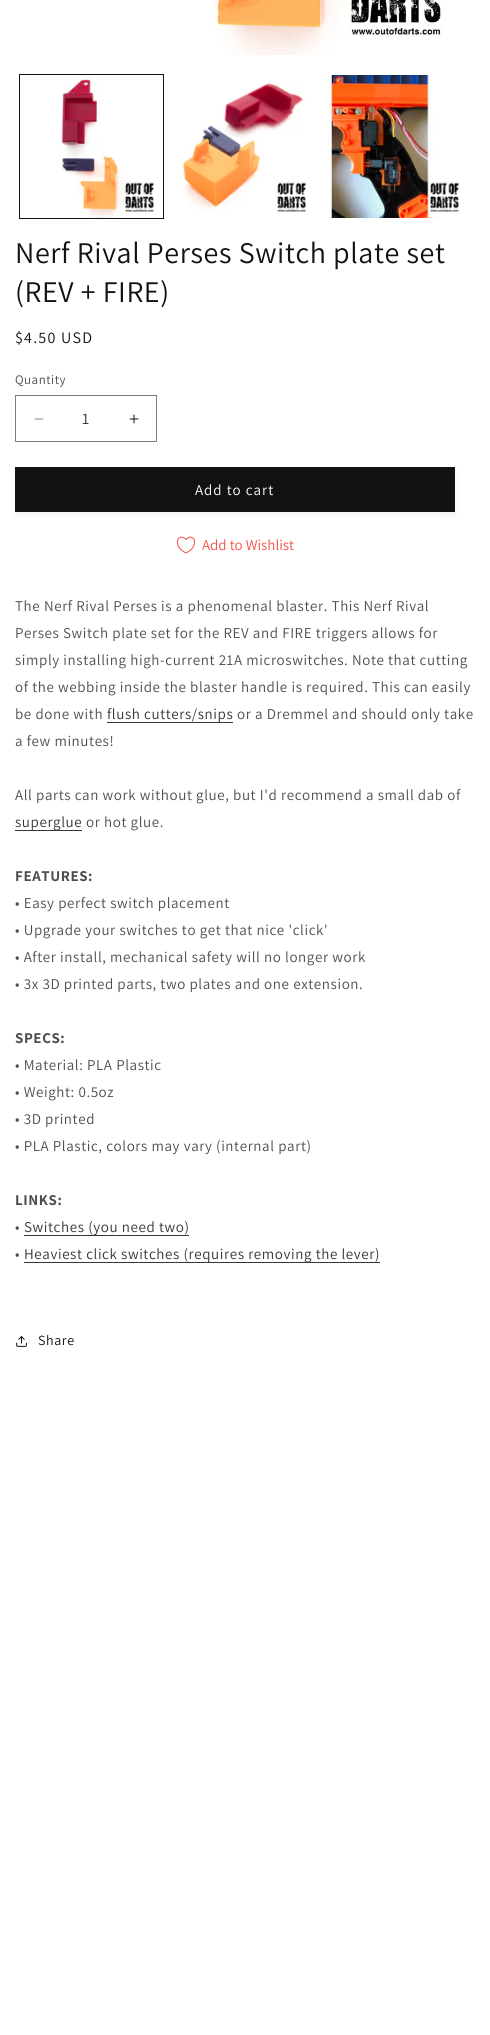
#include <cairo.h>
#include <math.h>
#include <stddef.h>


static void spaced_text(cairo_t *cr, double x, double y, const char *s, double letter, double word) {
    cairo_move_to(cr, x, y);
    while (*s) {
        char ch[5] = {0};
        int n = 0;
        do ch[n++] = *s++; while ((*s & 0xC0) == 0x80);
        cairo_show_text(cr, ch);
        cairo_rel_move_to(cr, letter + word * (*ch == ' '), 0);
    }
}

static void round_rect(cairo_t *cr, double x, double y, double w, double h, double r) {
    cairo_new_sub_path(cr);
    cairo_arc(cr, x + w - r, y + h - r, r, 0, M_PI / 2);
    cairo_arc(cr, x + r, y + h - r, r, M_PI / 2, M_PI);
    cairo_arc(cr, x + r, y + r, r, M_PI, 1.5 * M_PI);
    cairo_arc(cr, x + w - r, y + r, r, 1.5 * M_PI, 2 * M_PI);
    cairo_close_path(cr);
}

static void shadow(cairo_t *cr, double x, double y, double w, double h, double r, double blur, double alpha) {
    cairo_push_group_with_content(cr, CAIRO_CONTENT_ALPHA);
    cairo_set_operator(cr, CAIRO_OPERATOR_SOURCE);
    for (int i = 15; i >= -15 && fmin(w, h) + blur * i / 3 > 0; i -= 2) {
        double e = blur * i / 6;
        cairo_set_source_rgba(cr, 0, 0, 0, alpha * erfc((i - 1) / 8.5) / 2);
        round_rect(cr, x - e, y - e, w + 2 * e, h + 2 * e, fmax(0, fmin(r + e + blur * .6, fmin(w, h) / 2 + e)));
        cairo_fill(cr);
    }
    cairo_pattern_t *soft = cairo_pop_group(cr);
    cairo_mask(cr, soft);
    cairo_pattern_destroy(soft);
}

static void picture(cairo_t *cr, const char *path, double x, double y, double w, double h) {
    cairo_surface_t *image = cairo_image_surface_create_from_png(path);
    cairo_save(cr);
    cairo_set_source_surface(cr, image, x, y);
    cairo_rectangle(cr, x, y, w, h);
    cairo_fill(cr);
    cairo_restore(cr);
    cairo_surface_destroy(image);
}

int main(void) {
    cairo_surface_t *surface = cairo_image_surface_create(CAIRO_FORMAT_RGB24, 490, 2035);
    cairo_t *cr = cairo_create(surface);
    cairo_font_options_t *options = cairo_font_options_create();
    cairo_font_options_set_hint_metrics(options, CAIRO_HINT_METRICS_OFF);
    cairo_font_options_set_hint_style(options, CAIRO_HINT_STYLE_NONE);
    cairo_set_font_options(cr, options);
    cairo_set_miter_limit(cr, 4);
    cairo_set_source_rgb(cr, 1, 1, 1);
    cairo_paint(cr);
    picture(cr, "img1.png", 210, 0, 232, 55);
    cairo_rectangle(cr, 19.5, 74.5, 144, 144);
    cairo_set_source_rgb(cr, 0.071, 0.071, 0.071);
    cairo_set_line_width(cr, 1);
    cairo_stroke(cr);
    picture(cr, "img2.png", 61, 75, 94, 143);
    picture(cr, "img3.png", 182, 82, 125, 130);
    picture(cr, "img4.png", 329, 75, 131, 143);
    cairo_select_font_face(cr, "Assistant", CAIRO_FONT_SLANT_NORMAL, CAIRO_FONT_WEIGHT_NORMAL);
    cairo_set_font_size(cr, 30);
    spaced_text(cr, 15, 263, "Nerf Rival Perses Switch plate set", 0.6, 0);
    spaced_text(cr, 15, 302, "(REV + FIRE)", 0.6, 0);
    cairo_set_font_size(cr, 16);
    spaced_text(cr, 15, 343, "$4.50 USD", 1.25, 0);
    cairo_set_font_size(cr, 13);
    cairo_set_source_rgb(cr, 0.302, 0.302, 0.302);
    spaced_text(cr, 15, 384, "Quantity", 0.5, 0);
    picture(cr, "img5.png", 34, 418, 10, 2);
    picture(cr, "img6.png", 129, 414, 10, 10);
    cairo_rectangle(cr, 15.5, 395.5, 141, 46);
    cairo_set_source_rgb(cr, 0.49, 0.49, 0.49);
    cairo_stroke(cr);
    cairo_set_font_size(cr, 16);
    cairo_set_source_rgb(cr, 0.208, 0.208, 0.208);
    cairo_move_to(cr, 82, 424);
    cairo_show_text(cr, "1");
    cairo_set_source_rgb(cr, 0.071, 0.071, 0.071);
    shadow(cr, 15, 471, 440, 45, 0, 2.5, 0.05);
    cairo_set_source_rgb(cr, 0.071, 0.071, 0.071);
    cairo_rectangle(cr, 15, 467, 440, 45);
    cairo_fill(cr);
    cairo_set_font_size(cr, 15);
    cairo_set_source_rgb(cr, 1, 1, 1);
    spaced_text(cr, 195, 495, "Add to cart", 1, 0);
    cairo_new_path(cr);
    cairo_move_to(cr, 186, 553);
    cairo_curve_to(cr, 171, 545.5, 178.5, 531.5, 186, 539.5);
    cairo_curve_to(cr, 193.5, 531.5, 201, 545.5, 186, 553);
    cairo_close_path(cr);
    cairo_set_source_rgb(cr, 0.953, 0.314, 0.275);
    cairo_stroke(cr);
    cairo_move_to(cr, 202, 550);
    cairo_show_text(cr, "Add to Wishlist");
    cairo_set_source_rgb(cr, 0.302, 0.302, 0.302);
    spaced_text(cr, 15, 611, "The Nerf Rival Perses is a phenomenal blaster. This Nerf Rival", 0.6, 0);
    spaced_text(cr, 15, 638, "Perses Switch plate set for the REV and FIRE triggers allows for", 0.6, 0);
    spaced_text(cr, 15, 665, "simply installing high-current 21A microswitches. Note that cutting", 0.6, 0);
    spaced_text(cr, 15, 692, "of the webbing inside the blaster handle is required. This can easily", 0.6, 0);
    spaced_text(cr, 15, 719, "be done with", 0.6, 0);
    cairo_set_source_rgb(cr, 0.212, 0.212, 0.212);
    cairo_rectangle(cr, 107, 722, 126, 1);
    cairo_fill(cr);
    cairo_set_source_rgb(cr, 0.208, 0.208, 0.208);
    spaced_text(cr, 107, 719, "flush cutters/snips", 0.6, 0);
    cairo_set_source_rgb(cr, 0.302, 0.302, 0.302);
    spaced_text(cr, 237, 719, "or a Dremmel and should only take", 0.6, 0);
    spaced_text(cr, 15, 746, "a few minutes!", 0.6, 0);
    spaced_text(cr, 15, 800, "All parts can work without glue, but I'd recommend a small dab of", 0.6, 0);
    cairo_set_source_rgb(cr, 0.212, 0.212, 0.212);
    cairo_rectangle(cr, 15, 830, 67, 1);
    cairo_fill(cr);
    cairo_set_source_rgb(cr, 0.208, 0.208, 0.208);
    spaced_text(cr, 15, 827, "superglue", 0.6, 0);
    cairo_set_source_rgb(cr, 0.302, 0.302, 0.302);
    spaced_text(cr, 86, 827, "or hot glue.", 0.6, 0);
    cairo_select_font_face(cr, "Assistant", CAIRO_FONT_SLANT_NORMAL, CAIRO_FONT_WEIGHT_BOLD);
    spaced_text(cr, 15, 881, "FEATURES:", 0.6, 0);
    cairo_select_font_face(cr, "Assistant", CAIRO_FONT_SLANT_NORMAL, CAIRO_FONT_WEIGHT_NORMAL);
    spaced_text(cr, 15, 908, "• Easy perfect switch placement", 0.6, 0);
    spaced_text(cr, 15, 935, "• Upgrade your switches to get that nice 'click'", 0.6, 0);
    spaced_text(cr, 15, 962, "• After install, mechanical safety will no longer work", 0.6, 0);
    spaced_text(cr, 15, 989, "• 3x 3D printed parts, two plates and one extension.", 0.6, 0);
    cairo_select_font_face(cr, "Assistant", CAIRO_FONT_SLANT_NORMAL, CAIRO_FONT_WEIGHT_BOLD);
    spaced_text(cr, 15, 1043, "SPECS:", 0.6, 0);
    cairo_select_font_face(cr, "Assistant", CAIRO_FONT_SLANT_NORMAL, CAIRO_FONT_WEIGHT_NORMAL);
    spaced_text(cr, 15, 1070, "• Material: PLA Plastic", 0.6, 0);
    spaced_text(cr, 15, 1097, "• Weight: 0.5oz", 0.6, 0);
    spaced_text(cr, 15, 1124, "• 3D printed", 0.6, 0);
    spaced_text(cr, 15, 1151, "• PLA Plastic, colors may vary (internal part)", 0.6, 0);
    cairo_select_font_face(cr, "Assistant", CAIRO_FONT_SLANT_NORMAL, CAIRO_FONT_WEIGHT_BOLD);
    spaced_text(cr, 15, 1205, "LINKS:", 0.6, 0);
    cairo_select_font_face(cr, "Assistant", CAIRO_FONT_SLANT_NORMAL, CAIRO_FONT_WEIGHT_NORMAL);
    spaced_text(cr, 15, 1232, "•", 0.6, 0);
    cairo_set_source_rgb(cr, 0.212, 0.212, 0.212);
    cairo_rectangle(cr, 24, 1235, 165, 1);
    cairo_fill(cr);
    cairo_set_source_rgb(cr, 0.208, 0.208, 0.208);
    spaced_text(cr, 24, 1232, "Switches (you need two)", 0.6, 0);
    cairo_set_source_rgb(cr, 0.302, 0.302, 0.302);
    spaced_text(cr, 15, 1259, "•", 0.6, 0);
    cairo_set_source_rgb(cr, 0.212, 0.212, 0.212);
    cairo_rectangle(cr, 24, 1262, 356, 1);
    cairo_fill(cr);
    cairo_set_source_rgb(cr, 0.208, 0.208, 0.208);
    spaced_text(cr, 24, 1259, "Heaviest click switches (requires removing the lever)", 0.6, 0);
    picture(cr, "img7.png", 16, 1336, 11, 11);
    cairo_set_font_size(cr, 14);
    cairo_set_source_rgb(cr, 0.071, 0.071, 0.071);
    spaced_text(cr, 38, 1345, "Share", 0.6, 0);
    cairo_surface_write_to_png(surface, "page.png");
    cairo_font_options_destroy(options);
    cairo_destroy(cr);
    cairo_surface_destroy(surface);
    return 0;
}
